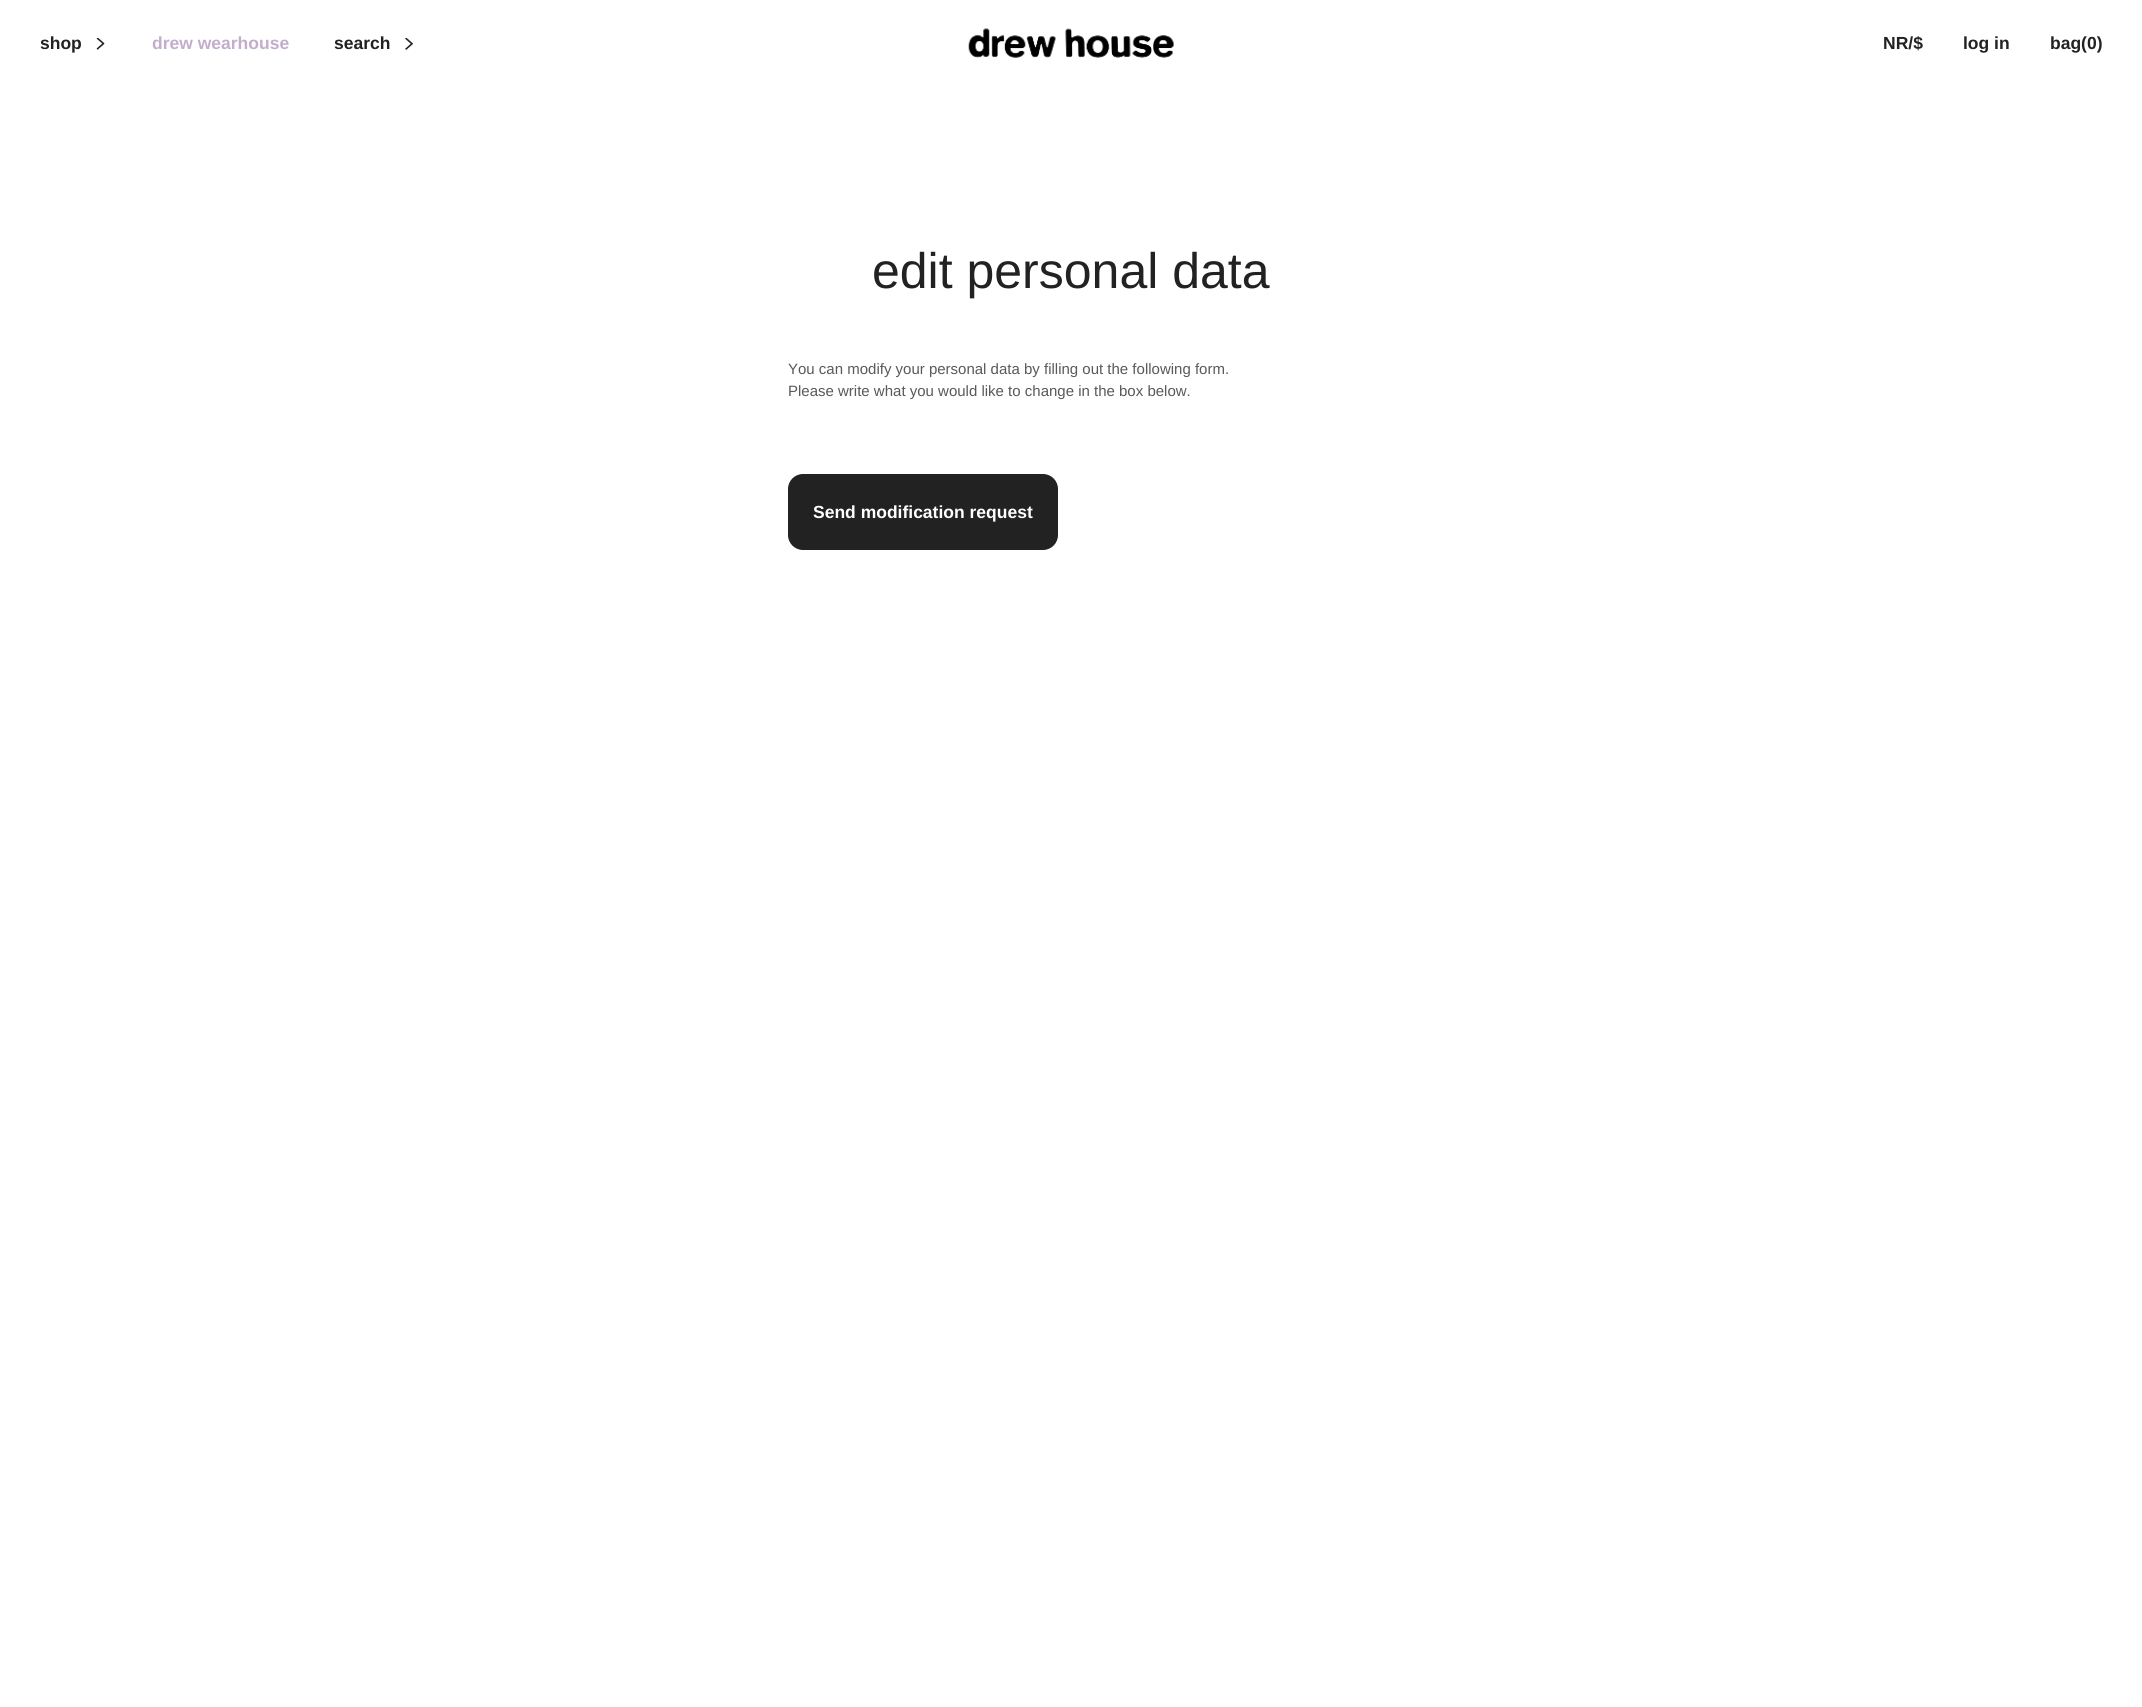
#include <cairo.h>
#include <math.h>
#include <stddef.h>


static void round_rect(cairo_t *cr, double x, double y, double w, double h, double r) {
    cairo_new_sub_path(cr);
    cairo_arc(cr, x + w - r, y + h - r, r, 0, M_PI / 2);
    cairo_arc(cr, x + r, y + h - r, r, M_PI / 2, M_PI);
    cairo_arc(cr, x + r, y + r, r, M_PI, 1.5 * M_PI);
    cairo_arc(cr, x + w - r, y + r, r, 1.5 * M_PI, 2 * M_PI);
    cairo_close_path(cr);
}

static void picture(cairo_t *cr, const char *path, double x, double y, double w, double h) {
    cairo_surface_t *image = cairo_image_surface_create_from_png(path);
    cairo_save(cr);
    cairo_set_source_surface(cr, image, x, y);
    cairo_rectangle(cr, x, y, w, h);
    cairo_fill(cr);
    cairo_restore(cr);
    cairo_surface_destroy(image);
}

int main(void) {
    cairo_surface_t *surface = cairo_image_surface_create(CAIRO_FORMAT_RGB24, 2142, 1707);
    cairo_t *cr = cairo_create(surface);
    cairo_font_options_t *options = cairo_font_options_create();
    cairo_font_options_set_hint_metrics(options, CAIRO_HINT_METRICS_OFF);
    cairo_font_options_set_hint_style(options, CAIRO_HINT_STYLE_NONE);
    cairo_set_font_options(cr, options);
    cairo_set_miter_limit(cr, 4);
    cairo_set_source_rgb(cr, 1, 1, 1);
    cairo_paint(cr);
    cairo_select_font_face(cr, "Liberation Sans", CAIRO_FONT_SLANT_NORMAL, CAIRO_FONT_WEIGHT_BOLD);
    cairo_set_font_size(cr, 17.5);
    cairo_set_source_rgb(cr, 0.133, 0.133, 0.133);
    cairo_move_to(cr, 40, 49);
    cairo_show_text(cr, "shop");
    picture(cr, "img1.png", 96, 37, 9, 13);
    cairo_set_source_rgb(cr, 0.769, 0.675, 0.804);
    cairo_move_to(cr, 152, 49);
    cairo_show_text(cr, "drew wearhouse");
    cairo_set_source_rgb(cr, 0.133, 0.133, 0.133);
    cairo_move_to(cr, 334, 49);
    cairo_show_text(cr, "search");
    picture(cr, "img2.png", 405, 37, 8, 13);
    picture(cr, "img3.png", 968, 28, 206, 30);
    cairo_move_to(cr, 1883, 49);
    cairo_show_text(cr, "NR/$");
    cairo_move_to(cr, 1963, 49);
    cairo_show_text(cr, "log in");
    cairo_move_to(cr, 2050, 49);
    cairo_show_text(cr, "bag(0)");
    cairo_select_font_face(cr, "Liberation Sans", CAIRO_FONT_SLANT_NORMAL, CAIRO_FONT_WEIGHT_NORMAL);
    cairo_set_font_size(cr, 50);
    cairo_move_to(cr, 872, 288);
    cairo_show_text(cr, "edit personal data");
    cairo_set_font_size(cr, 15);
    cairo_set_source_rgb(cr, 0.349, 0.349, 0.349);
    cairo_move_to(cr, 788, 374);
    cairo_show_text(cr, "You can modify your personal data by filling out the following form.");
    cairo_move_to(cr, 788, 396);
    cairo_show_text(cr, "Please write what you would like to change in the box below.");
    cairo_set_source_rgb(cr, 0.133, 0.133, 0.133);
    round_rect(cr, 788, 474, 270, 76, 15);
    cairo_fill(cr);
    cairo_select_font_face(cr, "Liberation Sans", CAIRO_FONT_SLANT_NORMAL, CAIRO_FONT_WEIGHT_BOLD);
    cairo_set_font_size(cr, 17.5);
    cairo_set_source_rgb(cr, 1, 1, 1);
    cairo_move_to(cr, 813, 518);
    cairo_show_text(cr, "Send modification request");
    cairo_surface_write_to_png(surface, "page.png");
    cairo_font_options_destroy(options);
    cairo_destroy(cr);
    cairo_surface_destroy(surface);
    return 0;
}
